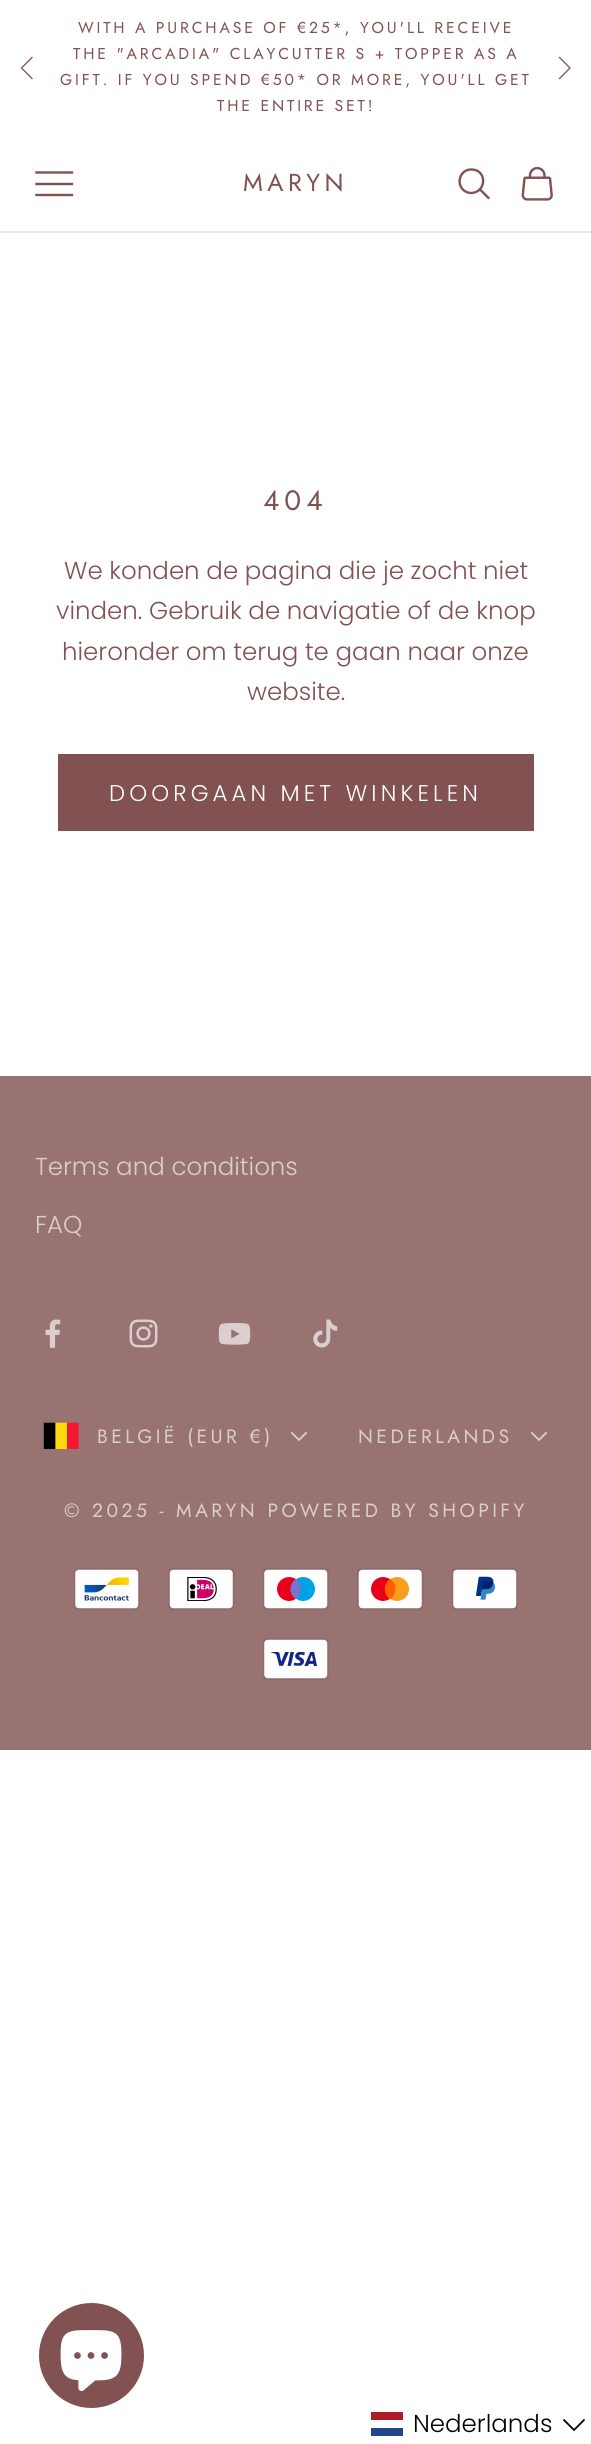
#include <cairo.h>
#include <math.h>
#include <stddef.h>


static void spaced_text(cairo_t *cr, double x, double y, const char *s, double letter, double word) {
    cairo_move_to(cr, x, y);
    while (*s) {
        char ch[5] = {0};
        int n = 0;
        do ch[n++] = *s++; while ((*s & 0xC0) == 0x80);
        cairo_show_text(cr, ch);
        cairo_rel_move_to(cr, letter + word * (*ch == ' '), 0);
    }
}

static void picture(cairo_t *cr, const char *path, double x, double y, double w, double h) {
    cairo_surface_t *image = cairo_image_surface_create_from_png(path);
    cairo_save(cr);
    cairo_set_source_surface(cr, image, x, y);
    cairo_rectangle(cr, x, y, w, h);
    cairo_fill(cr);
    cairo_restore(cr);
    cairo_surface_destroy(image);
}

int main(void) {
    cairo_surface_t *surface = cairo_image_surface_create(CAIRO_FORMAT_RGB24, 591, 2444);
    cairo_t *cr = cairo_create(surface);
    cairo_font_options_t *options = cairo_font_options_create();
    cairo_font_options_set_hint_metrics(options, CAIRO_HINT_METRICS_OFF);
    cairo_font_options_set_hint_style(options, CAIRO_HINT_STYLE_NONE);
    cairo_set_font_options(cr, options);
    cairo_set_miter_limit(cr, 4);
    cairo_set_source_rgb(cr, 1, 1, 1);
    cairo_paint(cr);
    cairo_new_path(cr);
    cairo_move_to(cr, 32, 57.5);
    cairo_line_to(cr, 21.5, 68);
    cairo_line_to(cr, 32, 78.5);
    cairo_set_source_rgb(cr, 0.51, 0.318, 0.318);
    cairo_set_line_width(cr, 1.3);
    cairo_set_line_cap(cr, CAIRO_LINE_CAP_SQUARE);
    cairo_stroke(cr);
    cairo_select_font_face(cr, "Jost", CAIRO_FONT_SLANT_NORMAL, CAIRO_FONT_WEIGHT_NORMAL);
    cairo_set_font_size(cr, 15.75);
    spaced_text(cr, 78, 33, "WITH A PURCHASE OF €25*, YOU'LL RECEIVE", 2.85, 0);
    spaced_text(cr, 73, 59, "THE \"ARCADIA\" CLAYCUTTER S + TOPPER AS A", 2.85, 0);
    spaced_text(cr, 60, 85, "GIFT. IF YOU SPEND €50* OR MORE, YOU'LL GET", 2.85, 0);
    spaced_text(cr, 217, 111, "THE ENTIRE SET!", 2.85, 0);
    cairo_new_path(cr);
    cairo_move_to(cr, 559.5, 78.5);
    cairo_line_to(cr, 570, 68);
    cairo_line_to(cr, 559.5, 57.5);
    cairo_stroke(cr);
    cairo_set_source_rgb(cr, 0.925, 0.898, 0.898);
    cairo_rectangle(cr, 0, 231, 591, 2);
    cairo_fill(cr);
    cairo_new_path(cr);
    cairo_move_to(cr, 36.5, 195);
    cairo_line_to(cr, 72, 195);
    cairo_move_to(cr, 36.5, 184);
    cairo_line_to(cr, 72, 184);
    cairo_move_to(cr, 36.5, 172.5);
    cairo_line_to(cr, 72, 172.5);
    cairo_set_source_rgb(cr, 0.51, 0.318, 0.318);
    cairo_set_line_width(cr, 2.4);
    cairo_stroke(cr);
    cairo_set_font_size(cr, 24.5);
    spaced_text(cr, 243, 191, "MARYN", 4.5, 0);
    cairo_new_path(cr);
    cairo_move_to(cr, 471.5, 169.5);
    cairo_curve_to(cr, 459.5, 169, 455, 185.5, 465.5, 191.5);
    cairo_curve_to(cr, 467.5, 192.5, 469.5, 193, 471.5, 193);
    cairo_curve_to(cr, 487, 192, 487, 169.5, 471.5, 169.5);
    cairo_close_path(cr);
    cairo_set_line_cap(cr, CAIRO_LINE_CAP_BUTT);
    cairo_stroke(cr);
    cairo_new_path(cr);
    cairo_move_to(cr, 480.5, 190);
    cairo_line_to(cr, 488.5, 198);
    cairo_set_line_cap(cr, CAIRO_LINE_CAP_ROUND);
    cairo_stroke(cr);
    picture(cr, "img1.png", 521, 166, 32, 35);
    cairo_set_font_size(cr, 28);
    spaced_text(cr, 263, 510, "404", 5, 0);
    cairo_select_font_face(cr, "Poppins Light", CAIRO_FONT_SLANT_NORMAL, CAIRO_FONT_WEIGHT_NORMAL);
    cairo_set_font_size(cr, 24.5);
    cairo_move_to(cr, 64, 579);
    cairo_show_text(cr, "We konden de pagina die je zocht niet");
    cairo_move_to(cr, 56, 619);
    cairo_show_text(cr, "vinden. Gebruik de navigatie of de knop");
    cairo_move_to(cr, 62, 660);
    cairo_show_text(cr, "hieronder om terug te gaan naar onze");
    cairo_move_to(cr, 247, 700);
    cairo_show_text(cr, "website.");
    cairo_rectangle(cr, 59, 755, 474, 75);
    cairo_fill_preserve(cr);
    cairo_set_line_width(cr, 2);
    cairo_set_line_cap(cr, CAIRO_LINE_CAP_BUTT);
    cairo_stroke(cr);
    cairo_set_font_size(cr, 22.75);
    cairo_set_source_rgb(cr, 1, 1, 1);
    spaced_text(cr, 109, 801, "DOORGAAN MET WINKELEN", 4.1, 0);
    cairo_set_source_rgb(cr, 0.6, 0.447, 0.447);
    cairo_rectangle(cr, 0, 1076, 591, 674);
    cairo_fill(cr);
    cairo_set_font_size(cr, 24.5);
    cairo_set_source_rgb(cr, 0.859, 0.808, 0.808);
    cairo_move_to(cr, 35, 1175);
    cairo_show_text(cr, "Terms and conditions");
    cairo_move_to(cr, 35, 1233);
    cairo_show_text(cr, "FAQ");
    picture(cr, "img2.png", 45, 1319, 16, 29);
    picture(cr, "img3.png", 129, 1319, 29, 29);
    picture(cr, "img4.png", 218, 1323, 33, 22);
    picture(cr, "img5.png", 313, 1319, 25, 29);
    picture(cr, "img6.png", 43, 1422, 36, 27);
    cairo_select_font_face(cr, "Jost", CAIRO_FONT_SLANT_NORMAL, CAIRO_FONT_WEIGHT_NORMAL);
    cairo_set_font_size(cr, 19.25);
    spaced_text(cr, 97, 1443, "BELGIË (EUR €)", 3.45, 0);
    cairo_new_path(cr);
    cairo_move_to(cr, 292, 1433);
    cairo_line_to(cr, 299, 1440);
    cairo_line_to(cr, 306, 1433);
    cairo_set_line_width(cr, 1.8);
    cairo_set_line_cap(cr, CAIRO_LINE_CAP_SQUARE);
    cairo_stroke(cr);
    spaced_text(cr, 358, 1443, "NEDERLANDS", 3.45, 0);
    cairo_new_path(cr);
    cairo_move_to(cr, 532, 1433);
    cairo_line_to(cr, 539, 1440);
    cairo_line_to(cr, 546, 1433);
    cairo_stroke(cr);
    spaced_text(cr, 64, 1517, "© 2025 - MARYN POWERED BY SHOPIFY", 3.45, 0);
    picture(cr, "img7.png", 74, 1568, 66, 42);
    picture(cr, "img8.png", 168, 1568, 67, 42);
    picture(cr, "img9.png", 263, 1568, 66, 42);
    picture(cr, "img10.png", 357, 1568, 67, 42);
    picture(cr, "img11.png", 452, 1568, 66, 42);
    picture(cr, "img12.png", 263, 1638, 66, 42);
    cairo_set_source_rgb(cr, 0.51, 0.318, 0.318);
    cairo_arc(cr, 91.5, 2355.5, 52.5, 0, 2 * M_PI);
    cairo_fill(cr);
    picture(cr, "img13.png", 60, 2330, 62, 61);
    cairo_set_source_rgb(cr, 0.129, 0.275, 0.545);
    cairo_rectangle(cr, 371, 2428, 32, 8);
    cairo_fill(cr);
    cairo_set_source_rgb(cr, 0.682, 0.11, 0.157);
    cairo_rectangle(cr, 371, 2412, 32, 8);
    cairo_fill(cr);
    cairo_select_font_face(cr, "Poppins Light", CAIRO_FONT_SLANT_NORMAL, CAIRO_FONT_WEIGHT_NORMAL);
    cairo_set_font_size(cr, 24.5);
    cairo_set_source_rgb(cr, 0, 0, 0);
    cairo_move_to(cr, 413, 2432);
    cairo_show_text(cr, "Nederlands");
    cairo_new_path(cr);
    cairo_move_to(cr, 563.5, 2419.5);
    cairo_line_to(cr, 574, 2430);
    cairo_line_to(cr, 584.5, 2419.5);
    cairo_set_line_cap(cr, CAIRO_LINE_CAP_BUTT);
    cairo_stroke(cr);
    cairo_surface_write_to_png(surface, "page.png");
    cairo_font_options_destroy(options);
    cairo_destroy(cr);
    cairo_surface_destroy(surface);
    return 0;
}
